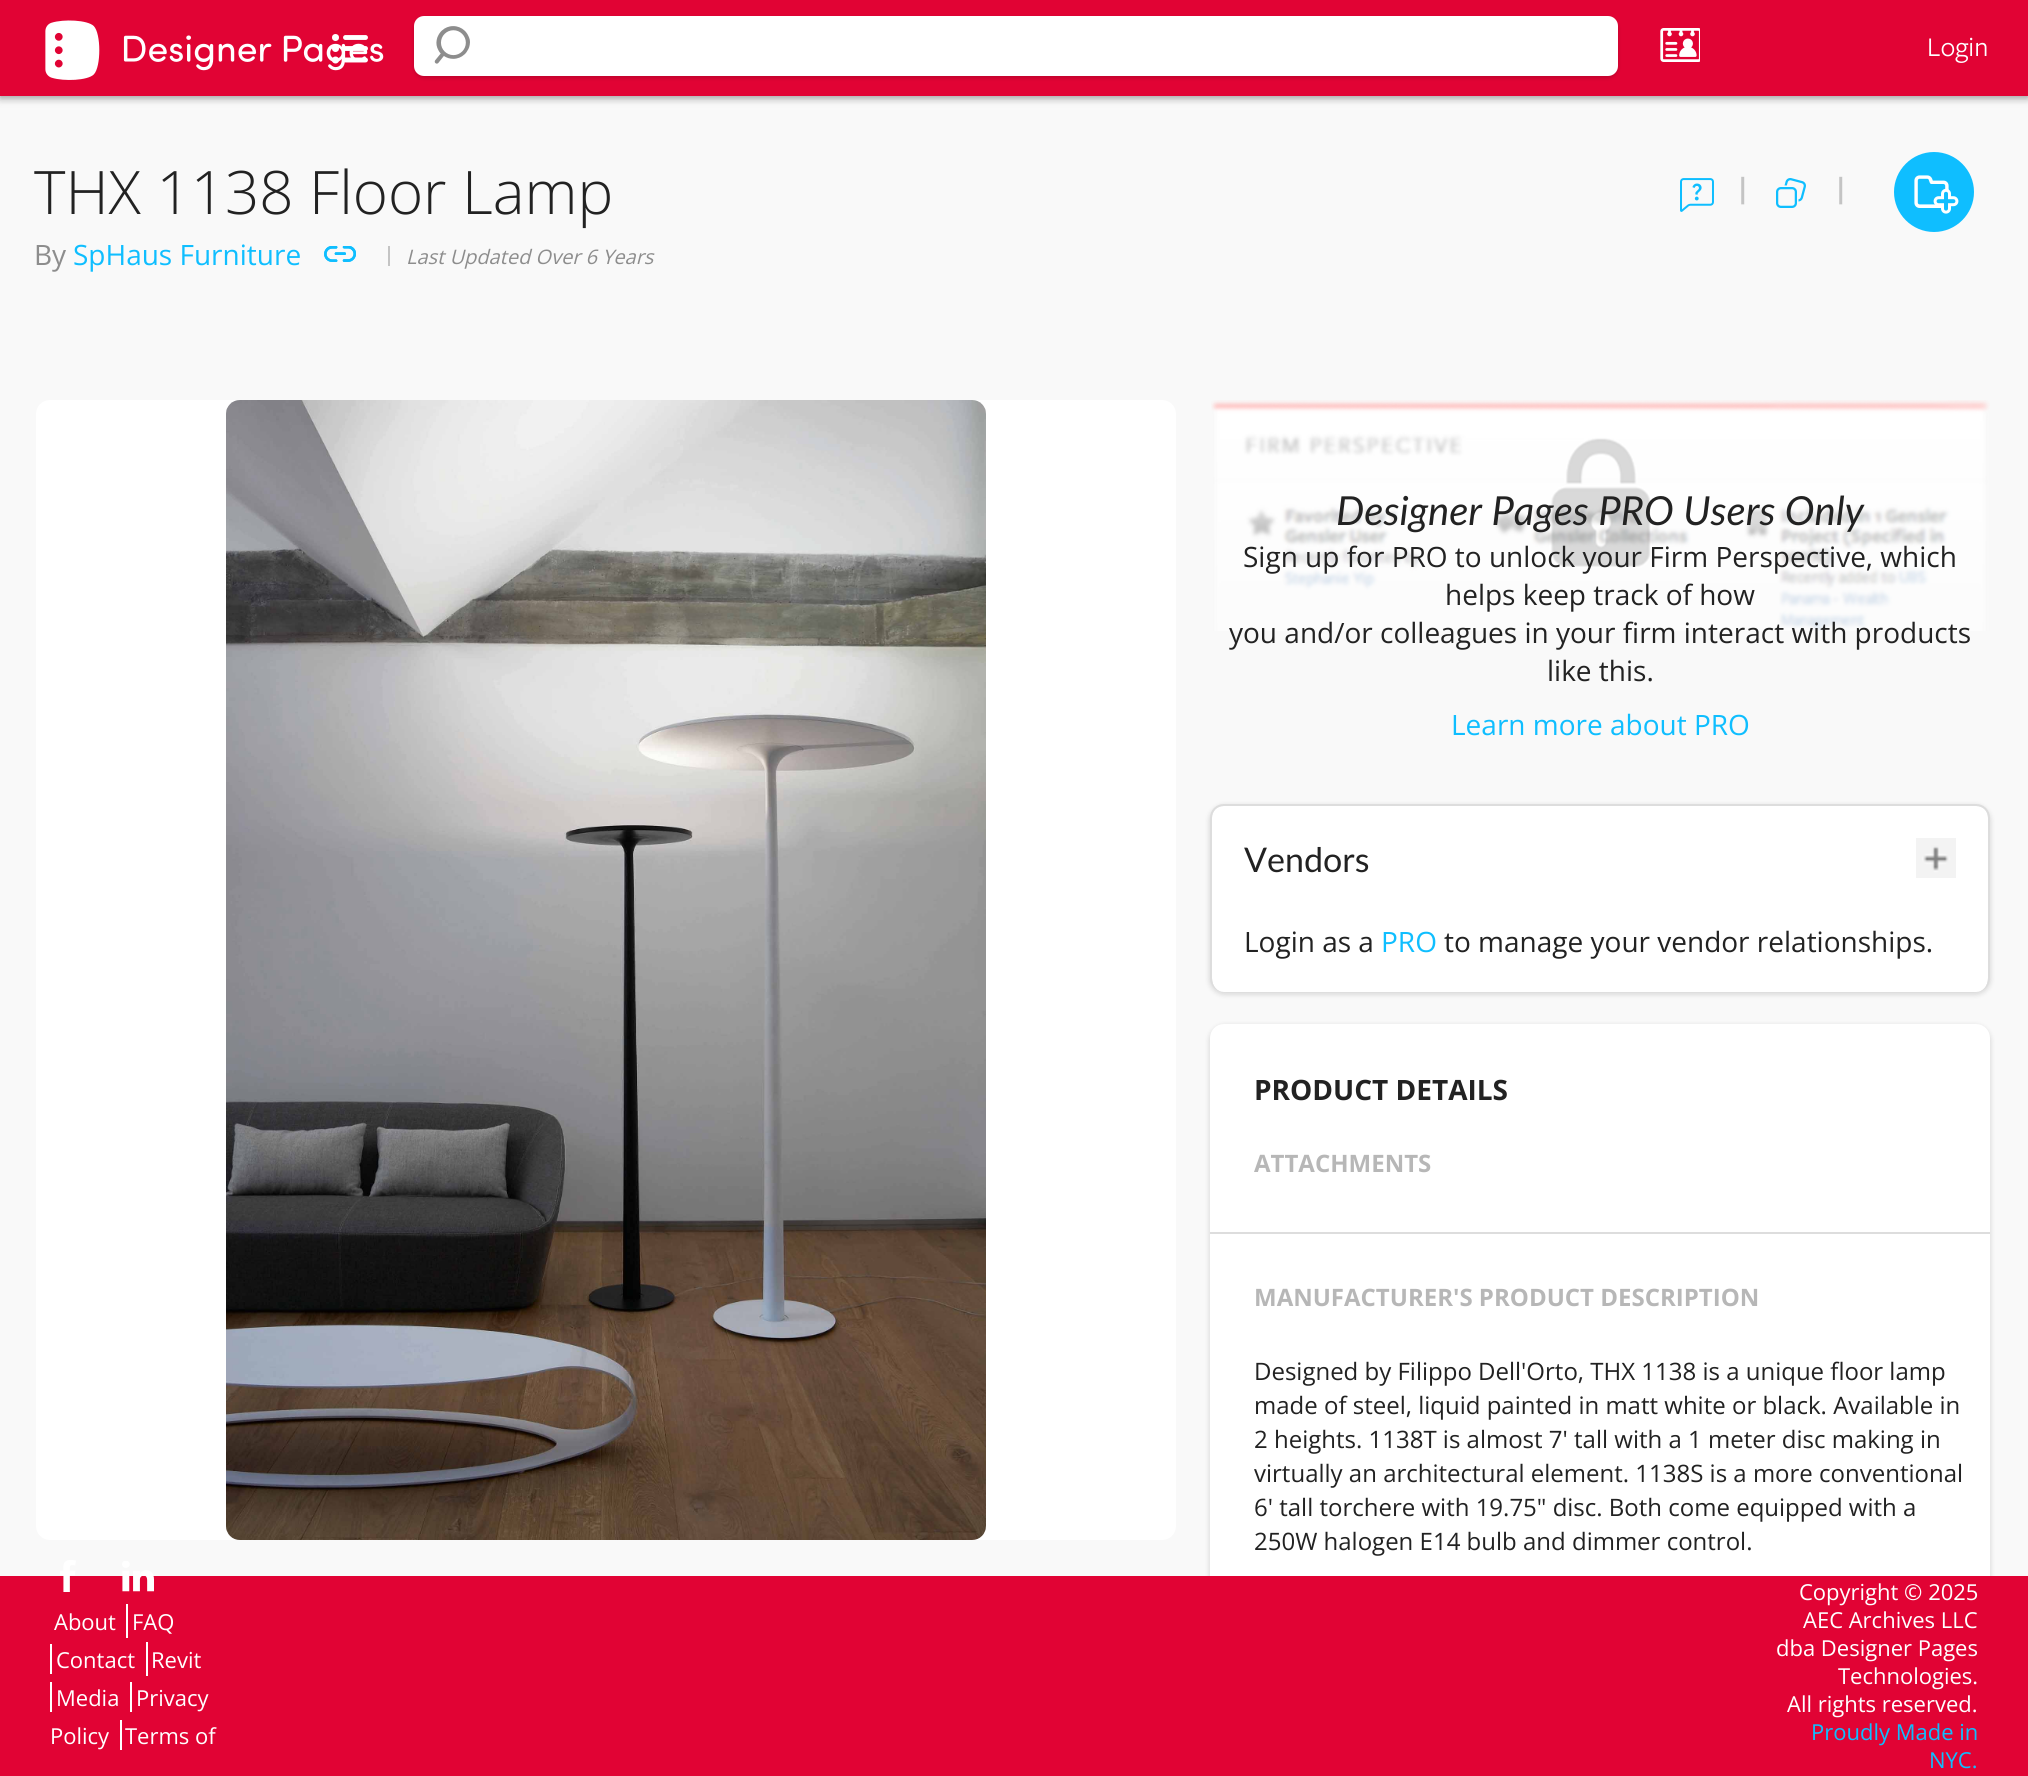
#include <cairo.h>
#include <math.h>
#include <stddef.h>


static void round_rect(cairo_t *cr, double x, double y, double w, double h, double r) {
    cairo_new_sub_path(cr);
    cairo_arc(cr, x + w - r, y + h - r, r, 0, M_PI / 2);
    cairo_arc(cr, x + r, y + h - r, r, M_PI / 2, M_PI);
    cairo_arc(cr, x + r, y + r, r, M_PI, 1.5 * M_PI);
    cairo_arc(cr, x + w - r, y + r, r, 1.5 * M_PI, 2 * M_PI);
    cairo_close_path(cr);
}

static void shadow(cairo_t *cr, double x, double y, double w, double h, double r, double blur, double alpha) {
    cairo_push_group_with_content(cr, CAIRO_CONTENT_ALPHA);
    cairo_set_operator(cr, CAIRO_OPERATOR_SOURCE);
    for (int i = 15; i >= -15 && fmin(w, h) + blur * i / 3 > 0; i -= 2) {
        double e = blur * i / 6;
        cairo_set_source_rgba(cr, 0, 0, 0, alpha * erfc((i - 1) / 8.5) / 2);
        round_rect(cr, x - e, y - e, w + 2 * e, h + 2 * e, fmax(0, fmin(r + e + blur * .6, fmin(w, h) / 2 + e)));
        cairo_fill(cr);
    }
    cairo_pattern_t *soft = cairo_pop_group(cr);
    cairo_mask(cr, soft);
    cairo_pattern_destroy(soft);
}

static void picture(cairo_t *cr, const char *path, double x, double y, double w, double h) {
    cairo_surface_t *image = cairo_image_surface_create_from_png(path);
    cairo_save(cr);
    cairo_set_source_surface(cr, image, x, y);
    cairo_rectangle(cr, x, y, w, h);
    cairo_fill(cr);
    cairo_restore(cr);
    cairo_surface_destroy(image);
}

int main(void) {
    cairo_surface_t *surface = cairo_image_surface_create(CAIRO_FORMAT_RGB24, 2028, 1776);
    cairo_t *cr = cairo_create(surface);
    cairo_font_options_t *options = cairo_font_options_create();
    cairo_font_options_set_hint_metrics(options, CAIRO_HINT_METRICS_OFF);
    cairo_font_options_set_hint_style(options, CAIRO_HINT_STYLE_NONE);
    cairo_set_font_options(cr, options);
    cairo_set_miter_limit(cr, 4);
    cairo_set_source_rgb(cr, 0.973, 0.973, 0.973);
    cairo_paint(cr);
    cairo_set_source_rgb(cr, 0, 0, 0);
    shadow(cr, 0, 2, 2028, 96, 0, 4, 0.4);
    cairo_set_source_rgb(cr, 0.882, 0.012, 0.204);
    cairo_rectangle(cr, 0, 0, 2028, 96);
    cairo_fill(cr);
    picture(cr, "img1.png", 45, 20, 339, 60);
    cairo_set_source_rgb(cr, 1, 1, 1);
    cairo_arc(cr, 335.5, 37.5, 3.5, 0, 2 * M_PI);
    cairo_fill(cr);
    cairo_arc(cr, 335.5, 48.5, 3.5, 0, 2 * M_PI);
    cairo_fill(cr);
    cairo_arc(cr, 335.5, 60, 3.5, 0, 2 * M_PI);
    cairo_fill(cr);
    cairo_new_path(cr);
    cairo_move_to(cr, 345.5, 37.5);
    cairo_line_to(cr, 365.5, 37.5);
    cairo_move_to(cr, 345.5, 48.5);
    cairo_line_to(cr, 365.5, 48.5);
    cairo_move_to(cr, 345.5, 60);
    cairo_line_to(cr, 365.5, 60);
    cairo_set_line_width(cr, 4.9);
    cairo_set_line_cap(cr, CAIRO_LINE_CAP_ROUND);
    cairo_stroke(cr);
    cairo_set_source_rgb(cr, 0, 0, 0);
    shadow(cr, 414, 18, 1204, 60, 10, 2, 0.16);
    cairo_set_source_rgb(cr, 1, 1, 1);
    round_rect(cr, 414, 16, 1204, 60, 10);
    cairo_fill(cr);
    picture(cr, "img2.png", 434, 26, 36, 38);
    picture(cr, "img3.png", 1660, 28, 40, 34);
    cairo_select_font_face(cr, "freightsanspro", CAIRO_FONT_SLANT_NORMAL, CAIRO_FONT_WEIGHT_NORMAL);
    cairo_set_font_size(cr, 28);
    cairo_move_to(cr, 1927, 56);
    cairo_show_text(cr, "Login");
    cairo_select_font_face(cr, "Open Sans Light", CAIRO_FONT_SLANT_NORMAL, CAIRO_FONT_WEIGHT_NORMAL);
    cairo_set_font_size(cr, 60);
    cairo_set_source_rgb(cr, 0.133, 0.133, 0.133);
    cairo_move_to(cr, 34, 214);
    cairo_show_text(cr, "THX 1138 Floor Lamp");
    cairo_select_font_face(cr, "Open Sans", CAIRO_FONT_SLANT_NORMAL, CAIRO_FONT_WEIGHT_NORMAL);
    cairo_set_font_size(cr, 28);
    cairo_set_source_rgb(cr, 0.553, 0.553, 0.553);
    cairo_move_to(cr, 34, 265);
    cairo_show_text(cr, "By");
    cairo_set_source_rgb(cr, 0.059, 0.745, 1);
    cairo_move_to(cr, 73, 265);
    cairo_show_text(cr, "SpHaus Furniture");
    picture(cr, "img4.png", 324, 246, 32, 16);
    picture(cr, "img5.png", 324, 246, 32, 16);
    cairo_set_source_rgb(cr, 0.769, 0.769, 0.769);
    cairo_rectangle(cr, 388, 246, 2, 20);
    cairo_fill(cr);
    cairo_select_font_face(cr, "Open Sans", CAIRO_FONT_SLANT_ITALIC, CAIRO_FONT_WEIGHT_NORMAL);
    cairo_set_font_size(cr, 20);
    cairo_set_source_rgb(cr, 0.553, 0.553, 0.553);
    cairo_move_to(cr, 406, 264);
    cairo_show_text(cr, "Last Updated Over 6 Years");
    picture(cr, "img6.png", 1680, 178, 34, 34);
    cairo_select_font_face(cr, "Open Sans", CAIRO_FONT_SLANT_NORMAL, CAIRO_FONT_WEIGHT_BOLD);
    cairo_set_font_size(cr, 28);
    cairo_set_source_rgb(cr, 0.769, 0.769, 0.769);
    cairo_move_to(cr, 1735, 198);
    cairo_show_text(cr, "|");
    picture(cr, "img7.png", 1776, 178, 30, 30);
    cairo_move_to(cr, 1833, 198);
    cairo_show_text(cr, "|");
    picture(cr, "img8.png", 1894, 152, 80, 80);
    cairo_set_source_rgb(cr, 1, 1, 1);
    round_rect(cr, 36, 400, 1140, 1140, 14);
    cairo_fill(cr);
    picture(cr, "img9.png", 226, 400, 760, 1140);
    picture(cr, "img10.png", 1211, 400, 779, 231);
    cairo_select_font_face(cr, "Lato", CAIRO_FONT_SLANT_ITALIC, CAIRO_FONT_WEIGHT_NORMAL);
    cairo_set_font_size(cr, 40);
    cairo_set_source_rgb(cr, 0.133, 0.133, 0.133);
    cairo_move_to(cr, 1336, 525);
    cairo_show_text(cr, "Designer Pages PRO Users Only");
    cairo_select_font_face(cr, "Open Sans", CAIRO_FONT_SLANT_NORMAL, CAIRO_FONT_WEIGHT_NORMAL);
    cairo_set_font_size(cr, 28);
    cairo_move_to(cr, 1243, 567);
    cairo_show_text(cr, "Sign up for PRO to unlock your Firm Perspective, which");
    cairo_move_to(cr, 1445, 605);
    cairo_show_text(cr, "helps keep track of how");
    cairo_move_to(cr, 1229, 643);
    cairo_show_text(cr, "you and/or colleagues in your firm interact with products");
    cairo_move_to(cr, 1547, 681);
    cairo_show_text(cr, "like this.");
    cairo_set_source_rgb(cr, 0.059, 0.745, 1);
    cairo_move_to(cr, 1451, 735);
    cairo_show_text(cr, "Learn more about PRO");
    cairo_set_source_rgb(cr, 0, 0, 0);
    shadow(cr, 1210, 806, 780, 188, 14, 3, 0.16);
    cairo_set_source_rgb(cr, 1, 1, 1);
    cairo_new_path(cr);
    cairo_move_to(cr, 1224, 806);
    cairo_line_to(cr, 1976, 806);
    cairo_curve_to(cr, 1983, 806, 1988, 811, 1988, 818);
    cairo_line_to(cr, 1988, 978);
    cairo_curve_to(cr, 1988, 986, 1983, 992, 1976, 992);
    cairo_line_to(cr, 1224, 992);
    cairo_curve_to(cr, 1217, 992, 1212, 986, 1212, 978);
    cairo_line_to(cr, 1212, 818);
    cairo_curve_to(cr, 1212, 811, 1217, 806, 1224, 806);
    cairo_close_path(cr);
    cairo_fill(cr);
    cairo_set_source_rgb(cr, 0.867, 0.867, 0.867);
    cairo_set_fill_rule(cr, CAIRO_FILL_RULE_EVEN_ODD);
    cairo_new_path(cr);
    cairo_move_to(cr, 1224, 804);
    cairo_line_to(cr, 1976, 804);
    cairo_curve_to(cr, 1984, 804, 1990, 810, 1990, 818);
    cairo_line_to(cr, 1990, 978);
    cairo_curve_to(cr, 1990, 986, 1984, 992, 1976, 992);
    cairo_line_to(cr, 1224, 992);
    cairo_curve_to(cr, 1216, 992, 1210, 986, 1210, 978);
    cairo_line_to(cr, 1210, 818);
    cairo_curve_to(cr, 1210, 810, 1216, 804, 1224, 804);
    cairo_close_path(cr);
    cairo_move_to(cr, 1224, 806);
    cairo_line_to(cr, 1976, 806);
    cairo_curve_to(cr, 1983, 806, 1988, 811, 1988, 818);
    cairo_line_to(cr, 1988, 978);
    cairo_curve_to(cr, 1988, 986, 1983, 992, 1976, 992);
    cairo_line_to(cr, 1224, 992);
    cairo_curve_to(cr, 1217, 992, 1212, 986, 1212, 978);
    cairo_line_to(cr, 1212, 818);
    cairo_curve_to(cr, 1212, 811, 1217, 806, 1224, 806);
    cairo_close_path(cr);
    cairo_fill(cr);
    cairo_select_font_face(cr, "Lato", CAIRO_FONT_SLANT_NORMAL, CAIRO_FONT_WEIGHT_NORMAL);
    cairo_set_font_size(cr, 34);
    cairo_set_source_rgb(cr, 0.133, 0.133, 0.133);
    cairo_move_to(cr, 1244, 872);
    cairo_show_text(cr, "Vendors");
    picture(cr, "img11.png", 1916, 838, 40, 40);
    cairo_select_font_face(cr, "Open Sans", CAIRO_FONT_SLANT_NORMAL, CAIRO_FONT_WEIGHT_NORMAL);
    cairo_set_font_size(cr, 28);
    cairo_move_to(cr, 1244, 952);
    cairo_show_text(cr, "Login as a");
    cairo_set_source_rgb(cr, 0.059, 0.745, 1);
    cairo_move_to(cr, 1381, 952);
    cairo_show_text(cr, "PRO");
    cairo_set_source_rgb(cr, 0.133, 0.133, 0.133);
    cairo_move_to(cr, 1444, 952);
    cairo_show_text(cr, "to manage your vendor relationships.");
    cairo_set_source_rgb(cr, 0, 0, 0);
    shadow(cr, 1210, 1026, 780, 588, 14, 3, 0.16);
    cairo_set_source_rgb(cr, 1, 1, 1);
    round_rect(cr, 1210, 1024, 780, 588, 14);
    cairo_fill(cr);
    cairo_select_font_face(cr, "Open Sans", CAIRO_FONT_SLANT_NORMAL, CAIRO_FONT_WEIGHT_BOLD);
    cairo_set_source_rgb(cr, 0.133, 0.133, 0.133);
    cairo_move_to(cr, 1254, 1100);
    cairo_show_text(cr, "PRODUCT DETAILS");
    cairo_set_font_size(cr, 24);
    cairo_set_source_rgb(cr, 0.718, 0.718, 0.718);
    cairo_move_to(cr, 1254, 1172);
    cairo_show_text(cr, "ATTACHMENTS");
    cairo_set_source_rgb(cr, 0.867, 0.867, 0.867);
    cairo_rectangle(cr, 1210, 1232, 780, 2);
    cairo_fill(cr);
    cairo_set_source_rgb(cr, 0.718, 0.718, 0.718);
    cairo_move_to(cr, 1254, 1306);
    cairo_show_text(cr, "MANUFACTURER'S PRODUCT DESCRIPTION");
    cairo_select_font_face(cr, "Open Sans", CAIRO_FONT_SLANT_NORMAL, CAIRO_FONT_WEIGHT_NORMAL);
    cairo_set_source_rgb(cr, 0.133, 0.133, 0.133);
    cairo_move_to(cr, 1254, 1380);
    cairo_show_text(cr, "Designed by Filippo Dell'Orto, THX 1138 is a unique floor lamp");
    cairo_move_to(cr, 1254, 1414);
    cairo_show_text(cr, "made of steel, liquid painted in matt white or black. Available in");
    cairo_move_to(cr, 1254, 1448);
    cairo_show_text(cr, "2 heights. 1138T is almost 7' tall with a 1 meter disc making in");
    cairo_move_to(cr, 1254, 1482);
    cairo_show_text(cr, "virtually an architectural element. 1138S is a more conventional");
    cairo_move_to(cr, 1254, 1516);
    cairo_show_text(cr, "6' tall torchere with 19.75\" disc. Both come equipped with a");
    cairo_move_to(cr, 1254, 1550);
    cairo_show_text(cr, "250W halogen E14 bulb and dimmer control.");
    cairo_set_source_rgb(cr, 0.882, 0.012, 0.204);
    cairo_rectangle(cr, 0, 1576, 2028, 200);
    cairo_fill(cr);
    picture(cr, "img12.png", 60, 1560, 16, 32);
    picture(cr, "img13.png", 122, 1561, 32, 31);
    cairo_set_font_size(cr, 22);
    cairo_set_source_rgb(cr, 1, 1, 1);
    cairo_move_to(cr, 54, 1630);
    cairo_show_text(cr, "About");
    cairo_move_to(cr, 132, 1630);
    cairo_show_text(cr, "FAQ");
    cairo_rectangle(cr, 126, 1604, 2, 34);
    cairo_fill(cr);
    cairo_move_to(cr, 56, 1668);
    cairo_show_text(cr, "Contact");
    cairo_rectangle(cr, 50, 1644, 2, 30);
    cairo_fill(cr);
    cairo_move_to(cr, 151, 1668);
    cairo_show_text(cr, "Revit");
    cairo_rectangle(cr, 146, 1642, 2, 34);
    cairo_fill(cr);
    cairo_move_to(cr, 56, 1706);
    cairo_show_text(cr, "Media");
    cairo_rectangle(cr, 50, 1682, 2, 30);
    cairo_fill(cr);
    cairo_move_to(cr, 136, 1706);
    cairo_show_text(cr, "Privacy");
    cairo_rectangle(cr, 130, 1682, 2, 30);
    cairo_fill(cr);
    cairo_move_to(cr, 50, 1744);
    cairo_show_text(cr, "Policy");
    cairo_move_to(cr, 125, 1744);
    cairo_show_text(cr, "Terms of");
    cairo_rectangle(cr, 120, 1720, 2, 30);
    cairo_fill(cr);
    cairo_move_to(cr, 1799, 1600);
    cairo_show_text(cr, "Copyright © 2025");
    cairo_move_to(cr, 1803, 1628);
    cairo_show_text(cr, "AEC Archives LLC");
    cairo_move_to(cr, 1776, 1656);
    cairo_show_text(cr, "dba Designer Pages");
    cairo_move_to(cr, 1838, 1684);
    cairo_show_text(cr, "Technologies.");
    cairo_move_to(cr, 1787, 1712);
    cairo_show_text(cr, "All rights reserved.");
    cairo_set_source_rgb(cr, 0.059, 0.745, 1);
    cairo_move_to(cr, 1811, 1740);
    cairo_show_text(cr, "Proudly Made in");
    cairo_move_to(cr, 1929, 1768);
    cairo_show_text(cr, "NYC.");
    cairo_surface_write_to_png(surface, "page.png");
    cairo_font_options_destroy(options);
    cairo_destroy(cr);
    cairo_surface_destroy(surface);
    return 0;
}
